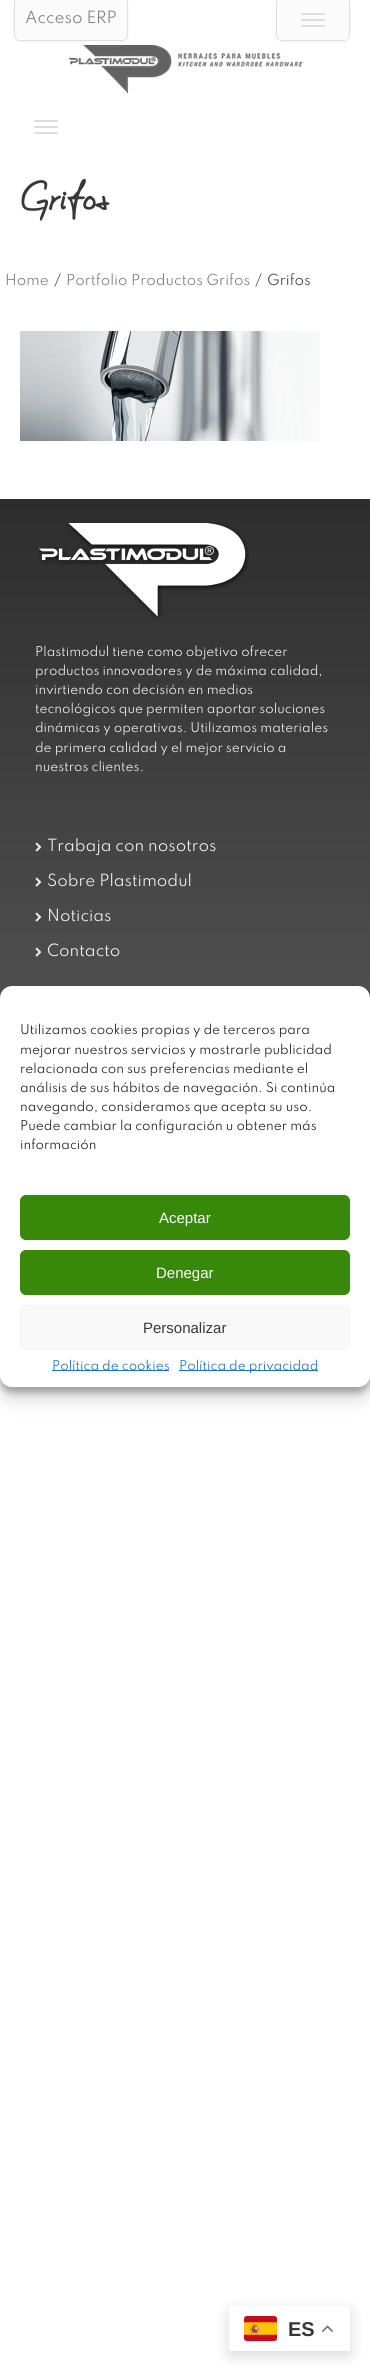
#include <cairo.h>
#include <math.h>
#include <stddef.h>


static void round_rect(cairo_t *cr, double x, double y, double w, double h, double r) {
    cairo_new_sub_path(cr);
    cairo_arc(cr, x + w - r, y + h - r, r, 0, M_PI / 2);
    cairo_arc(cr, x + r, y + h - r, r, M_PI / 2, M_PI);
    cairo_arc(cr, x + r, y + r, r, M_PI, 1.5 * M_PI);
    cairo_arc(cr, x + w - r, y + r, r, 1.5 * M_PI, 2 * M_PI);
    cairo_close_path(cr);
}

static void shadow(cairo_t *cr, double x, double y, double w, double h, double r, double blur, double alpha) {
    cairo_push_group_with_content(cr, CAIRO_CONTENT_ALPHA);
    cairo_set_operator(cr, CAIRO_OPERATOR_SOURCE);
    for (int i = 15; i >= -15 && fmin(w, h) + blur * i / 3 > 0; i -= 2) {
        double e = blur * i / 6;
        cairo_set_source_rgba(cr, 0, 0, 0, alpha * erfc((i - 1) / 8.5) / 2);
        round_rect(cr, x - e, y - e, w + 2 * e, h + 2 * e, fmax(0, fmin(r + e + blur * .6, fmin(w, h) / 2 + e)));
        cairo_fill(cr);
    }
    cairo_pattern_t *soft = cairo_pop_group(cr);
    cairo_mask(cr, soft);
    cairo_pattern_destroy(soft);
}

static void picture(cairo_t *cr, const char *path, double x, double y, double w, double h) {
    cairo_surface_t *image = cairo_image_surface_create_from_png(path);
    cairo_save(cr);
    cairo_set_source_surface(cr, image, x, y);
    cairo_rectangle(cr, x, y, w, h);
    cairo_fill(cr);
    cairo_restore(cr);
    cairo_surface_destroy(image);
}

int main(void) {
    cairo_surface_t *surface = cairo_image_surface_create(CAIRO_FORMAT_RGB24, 370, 2374);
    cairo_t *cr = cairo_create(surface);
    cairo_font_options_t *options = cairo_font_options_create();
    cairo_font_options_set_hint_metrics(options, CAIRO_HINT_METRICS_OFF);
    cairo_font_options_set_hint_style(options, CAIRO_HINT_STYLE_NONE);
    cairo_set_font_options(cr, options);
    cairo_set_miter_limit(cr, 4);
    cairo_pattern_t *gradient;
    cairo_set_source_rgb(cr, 1, 1, 1);
    cairo_paint(cr);
    picture(cr, "img1.png", 68, 45, 236, 48);
    cairo_set_source_rgb(cr, 0, 0, 0);
    shadow(cr, 14, 0, 114, 42, 6, 1.5, 0.05);
    cairo_set_source_rgb(cr, 0.984, 0.984, 0.984);
    cairo_new_path(cr);
    cairo_move_to(cr, 14, 0);
    cairo_line_to(cr, 128, 0);
    cairo_line_to(cr, 128, 35);
    cairo_curve_to(cr, 128, 38.5, 125.5, 41, 122, 41);
    cairo_line_to(cr, 20, 41);
    cairo_curve_to(cr, 16.5, 41, 14, 38.5, 14, 35);
    cairo_close_path(cr);
    cairo_fill(cr);
    cairo_set_source_rgb(cr, 0.875, 0.875, 0.875);
    cairo_set_fill_rule(cr, CAIRO_FILL_RULE_EVEN_ODD);
    cairo_new_path(cr);
    cairo_move_to(cr, 14, -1);
    cairo_line_to(cr, 128, -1);
    cairo_line_to(cr, 128, 35);
    cairo_curve_to(cr, 128, 38, 125, 41, 122, 41);
    cairo_line_to(cr, 20, 41);
    cairo_curve_to(cr, 17, 41, 14, 38, 14, 35);
    cairo_close_path(cr);
    cairo_move_to(cr, 15, -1);
    cairo_line_to(cr, 127, -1);
    cairo_line_to(cr, 127, 35);
    cairo_curve_to(cr, 127, 38, 125, 40, 122, 40);
    cairo_line_to(cr, 20, 40);
    cairo_curve_to(cr, 17, 40, 15, 38, 15, 35);
    cairo_close_path(cr);
    cairo_fill(cr);
    cairo_select_font_face(cr, "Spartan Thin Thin", CAIRO_FONT_SLANT_NORMAL, CAIRO_FONT_WEIGHT_NORMAL);
    cairo_set_font_size(cr, 15);
    cairo_set_source_rgb(cr, 0.51, 0.51, 0.51);
    cairo_move_to(cr, 25, 23);
    cairo_show_text(cr, "Acceso ERP");
    cairo_set_source_rgb(cr, 0, 0, 0);
    shadow(cr, 276, 0, 74, 42, 6, 1.5, 0.05);
    cairo_set_source_rgb(cr, 0.984, 0.984, 0.984);
    cairo_new_path(cr);
    cairo_move_to(cr, 276, 0);
    cairo_line_to(cr, 350, 0);
    cairo_line_to(cr, 350, 35);
    cairo_curve_to(cr, 350, 38.5, 347.5, 41, 344, 41);
    cairo_line_to(cr, 282, 41);
    cairo_curve_to(cr, 278.5, 41, 276, 38.5, 276, 35);
    cairo_close_path(cr);
    cairo_fill(cr);
    cairo_set_source_rgb(cr, 0.875, 0.875, 0.875);
    cairo_new_path(cr);
    cairo_move_to(cr, 276, -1);
    cairo_line_to(cr, 350, -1);
    cairo_line_to(cr, 350, 35);
    cairo_curve_to(cr, 350, 38, 347, 41, 344, 41);
    cairo_line_to(cr, 282, 41);
    cairo_curve_to(cr, 279, 41, 276, 38, 276, 35);
    cairo_close_path(cr);
    cairo_move_to(cr, 277, -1);
    cairo_line_to(cr, 349, -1);
    cairo_line_to(cr, 349, 35);
    cairo_curve_to(cr, 349, 38, 347, 40, 344, 40);
    cairo_line_to(cr, 282, 40);
    cairo_curve_to(cr, 279, 40, 277, 38, 277, 35);
    cairo_close_path(cr);
    cairo_fill(cr);
    cairo_set_source_rgb(cr, 0.867, 0.867, 0.867);
    round_rect(cr, 301, 13, 24, 2, 1);
    cairo_fill(cr);
    round_rect(cr, 301, 19, 24, 2, 1);
    cairo_fill(cr);
    round_rect(cr, 301, 25, 24, 2, 1);
    cairo_fill(cr);
    round_rect(cr, 34, 120, 24, 2, 1);
    cairo_fill(cr);
    round_rect(cr, 34, 126, 24, 2, 1);
    cairo_fill(cr);
    round_rect(cr, 34, 132, 24, 2, 1);
    cairo_fill(cr);
    cairo_select_font_face(cr, "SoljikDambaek", CAIRO_FONT_SLANT_NORMAL, CAIRO_FONT_WEIGHT_BOLD);
    cairo_set_font_size(cr, 49);
    cairo_set_source_rgb(cr, 0.22, 0.22, 0.22);
    cairo_move_to(cr, 20, 214);
    cairo_show_text(cr, "Grifos");
    cairo_select_font_face(cr, "Spartan Thin Thin", CAIRO_FONT_SLANT_NORMAL, CAIRO_FONT_WEIGHT_NORMAL);
    cairo_set_font_size(cr, 13.5);
    cairo_set_source_rgb(cr, 0.51, 0.51, 0.51);
    cairo_move_to(cr, 5, 285);
    cairo_show_text(cr, "Home");
    cairo_set_source_rgb(cr, 0.267, 0.267, 0.267);
    cairo_move_to(cr, 54, 285);
    cairo_show_text(cr, "/");
    cairo_set_source_rgb(cr, 0.51, 0.51, 0.51);
    cairo_move_to(cr, 66, 285);
    cairo_show_text(cr, "Portfolio Productos Grifos");
    cairo_set_source_rgb(cr, 0.267, 0.267, 0.267);
    cairo_move_to(cr, 255, 285);
    cairo_show_text(cr, "/");
    cairo_move_to(cr, 267, 285);
    cairo_show_text(cr, "Grifos");
    picture(cr, "img2.png", 20, 331, 300, 110);
    gradient = cairo_pattern_create_linear(0, 499, 0, 1175);
    cairo_pattern_add_color_stop_rgba(gradient, 0, 0.176, 0.176, 0.176, 1);
    cairo_pattern_add_color_stop_rgba(gradient, 1, 0.357, 0.357, 0.357, 1);
    cairo_set_source(cr, gradient);
    cairo_pattern_destroy(gradient);
    cairo_rectangle(cr, 0, 499, 370, 499);
    cairo_fill(cr);
    picture(cr, "img3.png", 39, 522, 210, 97);
    cairo_set_font_size(cr, 12);
    cairo_set_source_rgb(cr, 0.929, 0.929, 0.929);
    cairo_move_to(cr, 35, 656);
    cairo_show_text(cr, "Plastimodul tiene como objetivo ofrecer");
    cairo_move_to(cr, 35, 675);
    cairo_show_text(cr, "productos innovadores y de máxima calidad,");
    cairo_move_to(cr, 35, 694);
    cairo_show_text(cr, "invirtiendo con decisión en medios");
    cairo_move_to(cr, 35, 713);
    cairo_show_text(cr, "tecnológicos que permiten aportar soluciones");
    cairo_move_to(cr, 35, 732);
    cairo_show_text(cr, "dinámicas y operativas. Utilizamos materiales");
    cairo_move_to(cr, 35, 752);
    cairo_show_text(cr, "de primera calidad y el mejor servicio a");
    cairo_move_to(cr, 35, 771);
    cairo_show_text(cr, "nuestros clientes.");
    picture(cr, "img4.png", 35, 842, 7, 10);
    cairo_set_font_size(cr, 15);
    cairo_move_to(cr, 47, 851);
    cairo_show_text(cr, "Trabaja con nosotros");
    picture(cr, "img5.png", 35, 877, 7, 10);
    cairo_move_to(cr, 47, 886);
    cairo_show_text(cr, "Sobre Plastimodul");
    picture(cr, "img6.png", 35, 912, 7, 10);
    cairo_move_to(cr, 47, 921);
    cairo_show_text(cr, "Noticias");
    picture(cr, "img7.png", 35, 947, 7, 10);
    cairo_move_to(cr, 47, 956);
    cairo_show_text(cr, "Contacto");
    cairo_set_source_rgb(cr, 0, 0, 0);
    shadow(cr, 229, 2311, 121, 45, 2, 7.5, 0.15);
    cairo_set_source_rgb(cr, 1, 1, 1);
    round_rect(cr, 229, 2306, 121, 45, 2);
    cairo_fill(cr);
    picture(cr, "img8.png", 244, 2316, 33, 25);
    cairo_select_font_face(cr, "Liberation Sans", CAIRO_FONT_SLANT_NORMAL, CAIRO_FONT_WEIGHT_BOLD);
    cairo_set_font_size(cr, 20);
    cairo_set_source_rgb(cr, 0.22, 0.22, 0.22);
    cairo_move_to(cr, 288, 2336);
    cairo_show_text(cr, "ES");
    picture(cr, "img9.png", 322, 2325, 11, 7);
    cairo_set_source_rgb(cr, 0, 0, 0);
    shadow(cr, 0, 992, 370, 401, 12, 3, 0.23);
    shadow(cr, 0, 996, 370, 401, 12, 10, 0.19);
    cairo_set_source_rgb(cr, 1, 1, 1);
    round_rect(cr, 0, 986, 370, 401, 12);
    cairo_fill(cr);
    cairo_select_font_face(cr, "Spartan Thin Thin", CAIRO_FONT_SLANT_NORMAL, CAIRO_FONT_WEIGHT_NORMAL);
    cairo_set_font_size(cr, 12);
    cairo_set_source_rgb(cr, 0.133, 0.133, 0.133);
    cairo_move_to(cr, 20, 1034);
    cairo_show_text(cr, "Utilizamos cookies propias y de terceros para");
    cairo_move_to(cr, 20, 1054);
    cairo_show_text(cr, "mejorar nuestros servicios y mostrarle publicidad");
    cairo_move_to(cr, 20, 1073);
    cairo_show_text(cr, "relacionada con sus preferencias mediante el");
    cairo_move_to(cr, 20, 1092);
    cairo_show_text(cr, "análisis de sus hábitos de navegación. Si continúa");
    cairo_move_to(cr, 20, 1111);
    cairo_show_text(cr, "navegando, consideramos que acepta su uso.");
    cairo_move_to(cr, 20, 1130);
    cairo_show_text(cr, "Puede cambiar la configuración u obtener más");
    cairo_move_to(cr, 20, 1149);
    cairo_show_text(cr, "información");
    cairo_set_source_rgb(cr, 0.22, 0.533, 0.039);
    round_rect(cr, 20.5, 1195.5, 329, 44, 5.5);
    cairo_fill_preserve(cr);
    cairo_set_line_width(cr, 1);
    cairo_stroke(cr);
    cairo_select_font_face(cr, "Liberation Sans", CAIRO_FONT_SLANT_NORMAL, CAIRO_FONT_WEIGHT_NORMAL);
    cairo_set_font_size(cr, 15);
    cairo_set_source_rgb(cr, 1, 1, 1);
    cairo_move_to(cr, 159, 1223);
    cairo_show_text(cr, "Aceptar");
    cairo_set_source_rgb(cr, 0.22, 0.533, 0.039);
    round_rect(cr, 20.5, 1250.5, 329, 44, 5.5);
    cairo_fill_preserve(cr);
    cairo_stroke(cr);
    cairo_set_source_rgb(cr, 1, 1, 1);
    cairo_move_to(cr, 156, 1278);
    cairo_show_text(cr, "Denegar");
    cairo_set_source_rgb(cr, 0.976, 0.976, 0.976);
    round_rect(cr, 20.5, 1305.5, 329, 44, 5.5);
    cairo_fill_preserve(cr);
    cairo_set_source_rgb(cr, 0.949, 0.949, 0.949);
    cairo_stroke(cr);
    cairo_set_source_rgb(cr, 0.22, 0.22, 0.22);
    cairo_move_to(cr, 143, 1333);
    cairo_show_text(cr, "Personalizar");
    cairo_set_source_rgb(cr, 0.118, 0.451, 0.745);
    cairo_rectangle(cr, 52, 1370, 117, 1);
    cairo_fill(cr);
    cairo_select_font_face(cr, "Spartan Thin Thin", CAIRO_FONT_SLANT_NORMAL, CAIRO_FONT_WEIGHT_NORMAL);
    cairo_set_font_size(cr, 12);
    cairo_move_to(cr, 52, 1370);
    cairo_show_text(cr, "Política de cookies");
    cairo_rectangle(cr, 179, 1370, 139, 1);
    cairo_fill(cr);
    cairo_move_to(cr, 179, 1370);
    cairo_show_text(cr, "Política de privacidad");
    cairo_surface_write_to_png(surface, "page.png");
    cairo_font_options_destroy(options);
    cairo_destroy(cr);
    cairo_surface_destroy(surface);
    return 0;
}
